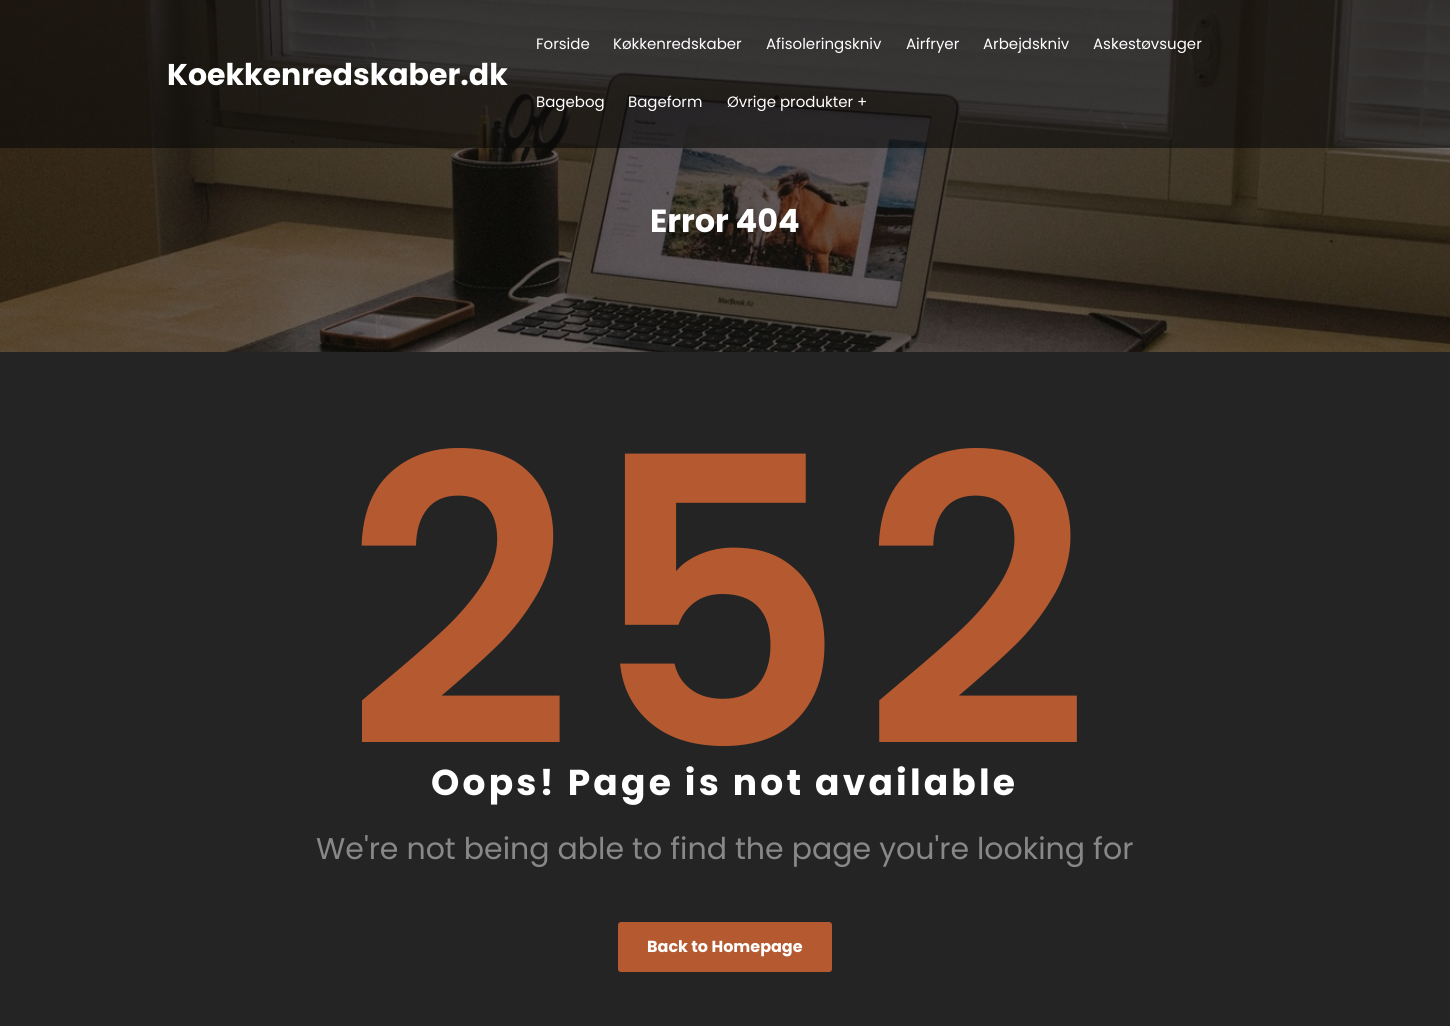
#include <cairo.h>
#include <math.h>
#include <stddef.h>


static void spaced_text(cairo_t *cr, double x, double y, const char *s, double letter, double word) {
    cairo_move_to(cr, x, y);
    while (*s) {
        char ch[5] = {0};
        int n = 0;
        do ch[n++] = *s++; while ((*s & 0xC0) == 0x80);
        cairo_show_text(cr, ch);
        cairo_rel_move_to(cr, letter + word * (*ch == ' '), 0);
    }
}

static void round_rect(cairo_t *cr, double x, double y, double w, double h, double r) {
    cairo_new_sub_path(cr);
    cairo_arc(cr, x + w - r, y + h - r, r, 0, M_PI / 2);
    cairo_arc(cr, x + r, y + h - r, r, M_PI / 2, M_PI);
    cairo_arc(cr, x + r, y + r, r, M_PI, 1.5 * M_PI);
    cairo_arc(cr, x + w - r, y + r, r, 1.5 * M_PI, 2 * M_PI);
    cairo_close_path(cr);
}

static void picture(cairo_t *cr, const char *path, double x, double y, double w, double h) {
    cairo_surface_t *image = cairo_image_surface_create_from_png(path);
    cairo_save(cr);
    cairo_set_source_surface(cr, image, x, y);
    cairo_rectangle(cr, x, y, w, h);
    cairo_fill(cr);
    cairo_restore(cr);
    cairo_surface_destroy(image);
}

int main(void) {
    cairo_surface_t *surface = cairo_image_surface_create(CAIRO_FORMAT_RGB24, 1450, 1026);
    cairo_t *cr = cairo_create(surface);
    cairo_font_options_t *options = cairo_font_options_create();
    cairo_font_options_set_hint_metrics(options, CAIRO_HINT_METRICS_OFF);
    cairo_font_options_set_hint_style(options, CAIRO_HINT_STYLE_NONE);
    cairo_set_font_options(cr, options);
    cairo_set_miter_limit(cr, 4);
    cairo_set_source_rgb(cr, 1, 1, 1);
    cairo_paint(cr);
    picture(cr, "img1.png", 0, 0, 1450, 352);
    cairo_set_source_rgba(cr, 0.039, 0.039, 0.039, 0.6);
    cairo_rectangle(cr, 0, 0, 1450, 148);
    cairo_fill(cr);
    cairo_select_font_face(cr, "Poppins", CAIRO_FONT_SLANT_NORMAL, CAIRO_FONT_WEIGHT_BOLD);
    cairo_set_font_size(cr, 30);
    cairo_set_source_rgb(cr, 1, 1, 1);
    cairo_move_to(cr, 167, 85);
    cairo_show_text(cr, "Koekkenredskaber.dk");
    cairo_select_font_face(cr, "Poppins", CAIRO_FONT_SLANT_NORMAL, CAIRO_FONT_WEIGHT_NORMAL);
    cairo_set_font_size(cr, 15);
    cairo_move_to(cr, 536, 49);
    cairo_show_text(cr, "Forside");
    cairo_move_to(cr, 613, 49);
    cairo_show_text(cr, "Køkkenredskaber");
    cairo_move_to(cr, 766, 49);
    cairo_show_text(cr, "Afisoleringskniv");
    cairo_move_to(cr, 906, 49);
    cairo_show_text(cr, "Airfryer");
    cairo_move_to(cr, 983, 49);
    cairo_show_text(cr, "Arbejdskniv");
    cairo_move_to(cr, 1093, 49);
    cairo_show_text(cr, "Askestøvsuger");
    cairo_move_to(cr, 536, 107);
    cairo_show_text(cr, "Bagebog");
    cairo_move_to(cr, 628, 107);
    cairo_show_text(cr, "Bageform");
    cairo_move_to(cr, 727, 107);
    cairo_show_text(cr, "Øvrige produkter +");
    cairo_select_font_face(cr, "Poppins", CAIRO_FONT_SLANT_NORMAL, CAIRO_FONT_WEIGHT_BOLD);
    cairo_set_font_size(cr, 32);
    cairo_move_to(cr, 650, 232);
    cairo_show_text(cr, "Error 404");
    cairo_set_source_rgb(cr, 0.141, 0.141, 0.141);
    cairo_rectangle(cr, 0, 352, 1450, 674);
    cairo_fill(cr);
    cairo_select_font_face(cr, "Poppins SemiBold", CAIRO_FONT_SLANT_NORMAL, CAIRO_FONT_WEIGHT_NORMAL);
    cairo_set_font_size(cr, 400);
    cairo_set_source_rgb(cr, 0.71, 0.353, 0.188);
    spaced_text(cr, 344, 746, "252", 15, 0);
    cairo_select_font_face(cr, "Poppins", CAIRO_FONT_SLANT_NORMAL, CAIRO_FONT_WEIGHT_BOLD);
    cairo_set_font_size(cr, 36);
    cairo_set_source_rgb(cr, 1, 1, 1);
    spaced_text(cr, 431, 795, "Oops! Page is not available", 3.2, 0);
    cairo_select_font_face(cr, "Poppins", CAIRO_FONT_SLANT_NORMAL, CAIRO_FONT_WEIGHT_NORMAL);
    cairo_set_font_size(cr, 30);
    cairo_set_source_rgb(cr, 0.533, 0.533, 0.533);
    cairo_move_to(cr, 316, 859);
    cairo_show_text(cr, "We're not being able to find the page you're looking for");
    cairo_set_source_rgb(cr, 0.71, 0.353, 0.188);
    round_rect(cr, 618.5, 922.5, 213, 49, 2.5);
    cairo_fill_preserve(cr);
    cairo_set_line_width(cr, 1);
    cairo_stroke(cr);
    cairo_select_font_face(cr, "Poppins", CAIRO_FONT_SLANT_NORMAL, CAIRO_FONT_WEIGHT_BOLD);
    cairo_set_font_size(cr, 16);
    cairo_set_source_rgb(cr, 1, 1, 1);
    cairo_move_to(cr, 647, 952);
    cairo_show_text(cr, "Back to Homepage");
    cairo_surface_write_to_png(surface, "page.png");
    cairo_font_options_destroy(options);
    cairo_destroy(cr);
    cairo_surface_destroy(surface);
    return 0;
}
